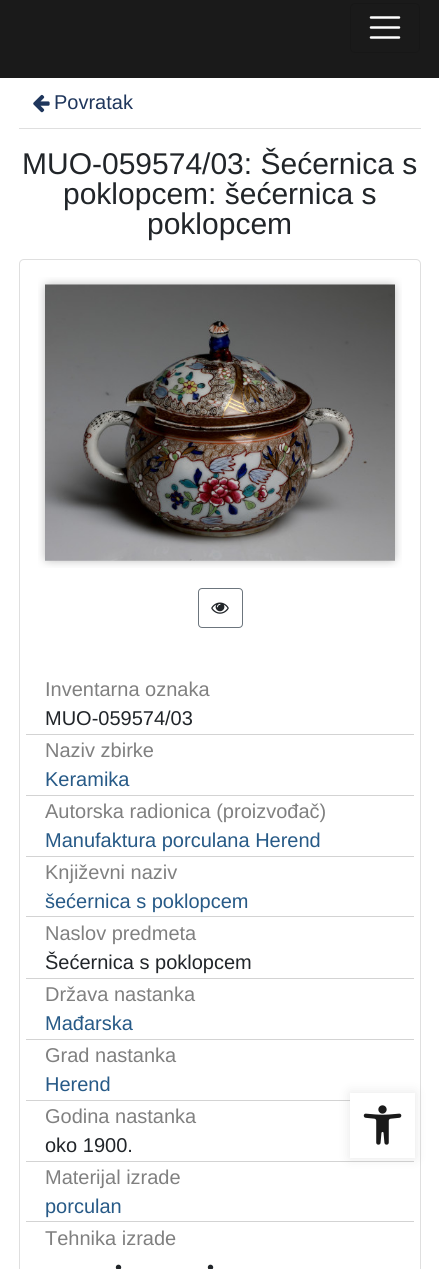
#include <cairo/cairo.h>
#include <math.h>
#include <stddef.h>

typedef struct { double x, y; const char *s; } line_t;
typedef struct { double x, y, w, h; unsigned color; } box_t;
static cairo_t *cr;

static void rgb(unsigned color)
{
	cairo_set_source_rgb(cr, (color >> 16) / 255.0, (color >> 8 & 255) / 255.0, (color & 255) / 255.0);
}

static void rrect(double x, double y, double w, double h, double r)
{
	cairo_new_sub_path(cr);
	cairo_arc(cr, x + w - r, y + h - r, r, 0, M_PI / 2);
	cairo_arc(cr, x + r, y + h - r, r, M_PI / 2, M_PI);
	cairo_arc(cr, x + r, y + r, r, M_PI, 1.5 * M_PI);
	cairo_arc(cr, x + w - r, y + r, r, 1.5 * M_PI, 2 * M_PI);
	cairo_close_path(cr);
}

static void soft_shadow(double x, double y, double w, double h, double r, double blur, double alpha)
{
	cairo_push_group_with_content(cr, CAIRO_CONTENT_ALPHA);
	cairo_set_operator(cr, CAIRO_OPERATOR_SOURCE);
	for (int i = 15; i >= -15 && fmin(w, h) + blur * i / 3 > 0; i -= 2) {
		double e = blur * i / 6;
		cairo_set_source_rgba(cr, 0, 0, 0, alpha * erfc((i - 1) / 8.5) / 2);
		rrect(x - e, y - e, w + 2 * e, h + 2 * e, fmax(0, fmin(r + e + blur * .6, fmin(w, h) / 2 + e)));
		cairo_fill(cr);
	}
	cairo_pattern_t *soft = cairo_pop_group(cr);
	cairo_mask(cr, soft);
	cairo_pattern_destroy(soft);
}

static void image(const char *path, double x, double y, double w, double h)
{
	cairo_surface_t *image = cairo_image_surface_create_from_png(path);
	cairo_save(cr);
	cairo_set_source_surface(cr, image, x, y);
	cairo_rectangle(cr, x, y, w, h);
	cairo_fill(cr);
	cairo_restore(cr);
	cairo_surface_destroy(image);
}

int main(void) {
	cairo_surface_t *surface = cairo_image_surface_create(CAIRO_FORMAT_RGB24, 439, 1269);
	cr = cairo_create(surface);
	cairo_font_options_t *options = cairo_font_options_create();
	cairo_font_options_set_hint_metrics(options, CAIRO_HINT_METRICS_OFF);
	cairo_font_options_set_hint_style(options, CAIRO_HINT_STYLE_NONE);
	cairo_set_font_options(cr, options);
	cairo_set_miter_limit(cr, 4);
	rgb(0xffffff);
	cairo_paint(cr);
	rgb(0x1a1a1a);
	cairo_rectangle(cr, 0, 0, 439, 78);
	cairo_fill(cr);
	rrect(350.5, 3.5, 69, 49, 4.5);
	rgb(0x171717);
	cairo_set_line_width(cr, 1);
	cairo_stroke(cr);
	cairo_new_path(cr);
	cairo_move_to(cr, 371, 17.5);
	cairo_line_to(cr, 399, 17.5);
	cairo_move_to(cr, 371, 27.5);
	cairo_line_to(cr, 399, 27.5);
	cairo_move_to(cr, 371, 37.5);
	cairo_line_to(cr, 399, 37.5);
	rgb(0xffffff);
	cairo_set_line_width(cr, 2.5);
	cairo_set_line_cap(cr, CAIRO_LINE_CAP_ROUND);
	cairo_stroke(cr);
	rgb(0xdfdfdf);
	cairo_rectangle(cr, 19, 128, 402, 1);
	cairo_fill(cr);
	image("img/1.png", 33, 94, 17, 19);
	rrect(19.5, 259.5, 401, 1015, 4.5);
	cairo_set_line_width(cr, 1);
	cairo_set_line_cap(cr, CAIRO_LINE_CAP_BUTT);
	cairo_stroke(cr);
	image("img/2.png", 38, 277, 364, 291);
	rrect(198.5, 588.5, 44, 39, 3.5);
	rgb(0x6c757d);
	cairo_stroke(cr);
	image("img/3.png", 211, 602, 18, 12);
	{
		static const box_t items[] = {
			{26, 734, 388, 1, 0xd3d3d3},
			{26, 795, 388, 1, 0xd3d3d3},
			{26, 856, 388, 1, 0xd3d3d3},
			{26, 916, 388, 1, 0xd3d3d3},
			{26, 978, 388, 1, 0xd3d3d3},
			{26, 1039, 388, 1, 0xd3d3d3},
			{26, 1100, 324, 1, 0xd3d3d3},
			{26, 1161, 388, 1, 0xd3d3d3},
			{26, 1221, 388, 1, 0xd3d3d3},
		};
		for (size_t i = 0; i < sizeof items / sizeof *items; i++) {
			rgb(items[i].color);
			cairo_rectangle(cr, items[i].x, items[i].y, items[i].w, items[i].h);
			cairo_fill(cr);
		}
	}
	rgb(0x000000);
	soft_shadow(350, 1093, 65, 65, 0, 6, 0.1);
	rgb(0xffffff);
	cairo_rectangle(cr, 350, 1093, 65, 65);
	cairo_fill(cr);
	image("img/4.png", 363, 1105, 39, 40);
	cairo_select_font_face(cr, "Liberation Sans", CAIRO_FONT_SLANT_NORMAL, CAIRO_FONT_WEIGHT_NORMAL);
	cairo_set_font_size(cr, 20);
	rgb(0x1f365c);
	cairo_move_to(cr, 54, 109);
	cairo_show_text(cr, "Povratak");
	cairo_set_font_size(cr, 30);
	rgb(0x212529);
	{
		static const line_t items[] = {
			{22, 174, "MUO-059574/03: Šećernica s"},
			{63, 204, "poklopcem: šećernica s"},
			{147, 234, "poklopcem"},
		};
		for (size_t i = 0; i < sizeof items / sizeof *items; i++) {
			cairo_move_to(cr, items[i].x, items[i].y);
			cairo_show_text(cr, items[i].s);
		}
	}
	cairo_set_font_size(cr, 20);
	rgb(0x808080);
	cairo_move_to(cr, 45, 696);
	cairo_show_text(cr, "Inventarna oznaka");
	rgb(0x212529);
	cairo_move_to(cr, 45, 725);
	cairo_show_text(cr, "MUO-059574/03");
	rgb(0x808080);
	cairo_move_to(cr, 45, 757);
	cairo_show_text(cr, "Naziv zbirke");
	rgb(0x275a87);
	cairo_move_to(cr, 45, 786);
	cairo_show_text(cr, "Keramika");
	rgb(0x808080);
	cairo_move_to(cr, 45, 818);
	cairo_show_text(cr, "Autorska radionica (proizvođač)");
	rgb(0x275a87);
	cairo_move_to(cr, 45, 847);
	cairo_show_text(cr, "Manufaktura porculana Herend");
	rgb(0x808080);
	cairo_move_to(cr, 45, 879);
	cairo_show_text(cr, "Književni naziv");
	rgb(0x275a87);
	cairo_move_to(cr, 45, 908);
	cairo_show_text(cr, "šećernica s poklopcem");
	rgb(0x808080);
	cairo_move_to(cr, 45, 940);
	cairo_show_text(cr, "Naslov predmeta");
	rgb(0x212529);
	cairo_move_to(cr, 45, 969);
	cairo_show_text(cr, "Šećernica s poklopcem");
	rgb(0x808080);
	cairo_move_to(cr, 45, 1001);
	cairo_show_text(cr, "Država nastanka");
	rgb(0x275a87);
	cairo_move_to(cr, 45, 1030);
	cairo_show_text(cr, "Mađarska");
	rgb(0x808080);
	cairo_move_to(cr, 45, 1062);
	cairo_show_text(cr, "Grad nastanka");
	rgb(0x275a87);
	cairo_move_to(cr, 45, 1091);
	cairo_show_text(cr, "Herend");
	rgb(0x808080);
	cairo_move_to(cr, 45, 1123);
	cairo_show_text(cr, "Godina nastanka");
	rgb(0x212529);
	cairo_move_to(cr, 45, 1152);
	cairo_show_text(cr, "oko 1900.");
	rgb(0x808080);
	cairo_move_to(cr, 45, 1184);
	cairo_show_text(cr, "Materijal izrade");
	rgb(0x275a87);
	cairo_move_to(cr, 45, 1213);
	cairo_show_text(cr, "porculan");
	rgb(0x808080);
	cairo_move_to(cr, 45, 1245);
	cairo_show_text(cr, "Tehnika izrade");
	rgb(0x212529);
	cairo_move_to(cr, 115, 1274);
	cairo_show_text(cr, "•");
	cairo_move_to(cr, 207, 1274);
	cairo_show_text(cr, "•");
	cairo_surface_write_to_png(surface, "page.png");
	cairo_font_options_destroy(options);
	cairo_destroy(cr);
	cairo_surface_destroy(surface);
	return 0;
}
